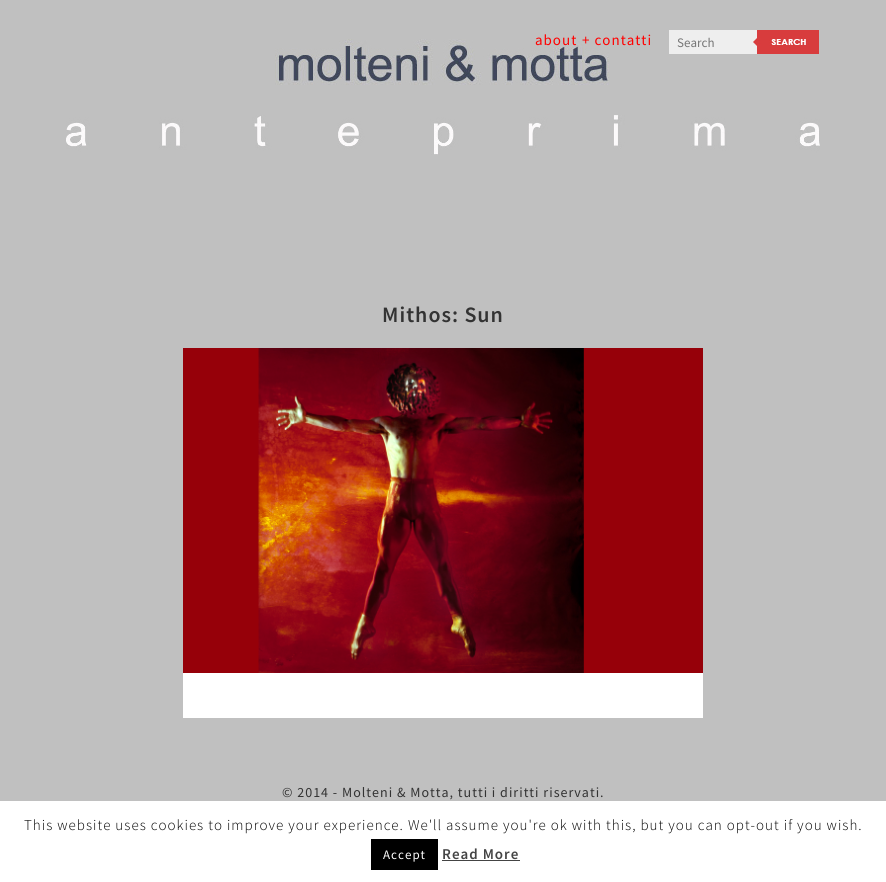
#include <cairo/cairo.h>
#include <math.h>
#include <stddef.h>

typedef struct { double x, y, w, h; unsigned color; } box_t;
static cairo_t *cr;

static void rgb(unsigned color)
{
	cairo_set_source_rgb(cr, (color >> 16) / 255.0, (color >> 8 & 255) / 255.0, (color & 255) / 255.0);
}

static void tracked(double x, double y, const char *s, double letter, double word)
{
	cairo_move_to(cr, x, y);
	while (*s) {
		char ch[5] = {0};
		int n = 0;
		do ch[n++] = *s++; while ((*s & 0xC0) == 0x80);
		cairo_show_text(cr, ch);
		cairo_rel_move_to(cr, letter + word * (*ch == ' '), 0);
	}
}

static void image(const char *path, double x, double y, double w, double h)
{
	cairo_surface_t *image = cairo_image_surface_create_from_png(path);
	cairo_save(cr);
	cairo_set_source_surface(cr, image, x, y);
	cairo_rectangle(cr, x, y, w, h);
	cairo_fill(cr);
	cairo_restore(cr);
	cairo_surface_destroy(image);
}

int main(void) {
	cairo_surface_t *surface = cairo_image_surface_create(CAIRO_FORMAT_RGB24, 886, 882);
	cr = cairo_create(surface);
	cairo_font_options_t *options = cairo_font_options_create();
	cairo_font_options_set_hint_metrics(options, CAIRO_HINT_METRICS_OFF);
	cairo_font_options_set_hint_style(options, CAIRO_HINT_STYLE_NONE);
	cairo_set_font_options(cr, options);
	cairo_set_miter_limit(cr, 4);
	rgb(0xc0c0c0);
	cairo_paint(cr);
	image("img/1.png", 275, 39, 334, 46);
	rgb(0xeeeeee);
	cairo_rectangle(cr, 669, 30, 84, 24);
	cairo_fill(cr);
	image("img/2.png", 753, 30, 66, 24);
	image("img/3.png", 66, 115, 754, 40);
	rgb(0xffffff);
	cairo_rectangle(cr, 183, 673, 520, 45);
	cairo_fill(cr);
	image("img/4.png", 183, 348, 477, 325);
	{
		static const box_t items[] = {
			{660, 348, 43, 325, 0x960009},
			{0, 801, 886, 81, 0xffffff},
			{371, 839, 67, 31, 0x000000},
			{442, 860, 78, 1, 0x444444},
		};
		for (size_t i = 0; i < sizeof items / sizeof *items; i++) {
			rgb(items[i].color);
			cairo_rectangle(cr, items[i].x, items[i].y, items[i].w, items[i].h);
			cairo_fill(cr);
		}
	}
	cairo_select_font_face(cr, "Source Sans Pro", CAIRO_FONT_SLANT_NORMAL, CAIRO_FONT_WEIGHT_NORMAL);
	cairo_set_font_size(cr, 15);
	rgb(0xff0000);
	tracked(535, 45, "about", 1, 0);
	tracked(582, 45, "+ contatti", 1, 0);
	cairo_set_font_size(cr, 13);
	rgb(0x757575);
	cairo_move_to(cr, 677, 47);
	cairo_show_text(cr, "Search");
	cairo_select_font_face(cr, "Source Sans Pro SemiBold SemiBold", CAIRO_FONT_SLANT_NORMAL, CAIRO_FONT_WEIGHT_NORMAL);
	cairo_set_font_size(cr, 22);
	rgb(0x333333);
	tracked(382, 322, "Mithos: Sun", 1, 0);
	cairo_select_font_face(cr, "Source Sans Pro", CAIRO_FONT_SLANT_NORMAL, CAIRO_FONT_WEIGHT_NORMAL);
	cairo_set_font_size(cr, 14);
	tracked(282, 797, "© 2014 - Molteni & Motta, tutti i diritti riservati.", 1, 0);
	cairo_select_font_face(cr, "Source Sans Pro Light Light", CAIRO_FONT_SLANT_NORMAL, CAIRO_FONT_WEIGHT_NORMAL);
	cairo_set_font_size(cr, 15);
	rgb(0x000000);
	tracked(24, 830, "This website uses cookies to improve your experience. We'll assume you're ok with this, but you can opt-out if you wish.", 1, 0);
	cairo_select_font_face(cr, "Source Sans Pro", CAIRO_FONT_SLANT_NORMAL, CAIRO_FONT_WEIGHT_NORMAL);
	cairo_set_font_size(cr, 13);
	rgb(0xffffff);
	tracked(383, 859, "Accept", 1, 0);
	cairo_select_font_face(cr, "Source Sans Pro SemiBold SemiBold", CAIRO_FONT_SLANT_NORMAL, CAIRO_FONT_WEIGHT_NORMAL);
	cairo_set_font_size(cr, 15);
	rgb(0x444444);
	tracked(442, 859, "Read More", 1, 0);
	cairo_surface_write_to_png(surface, "page.png");
	cairo_font_options_destroy(options);
	cairo_destroy(cr);
	cairo_surface_destroy(surface);
	return 0;
}
